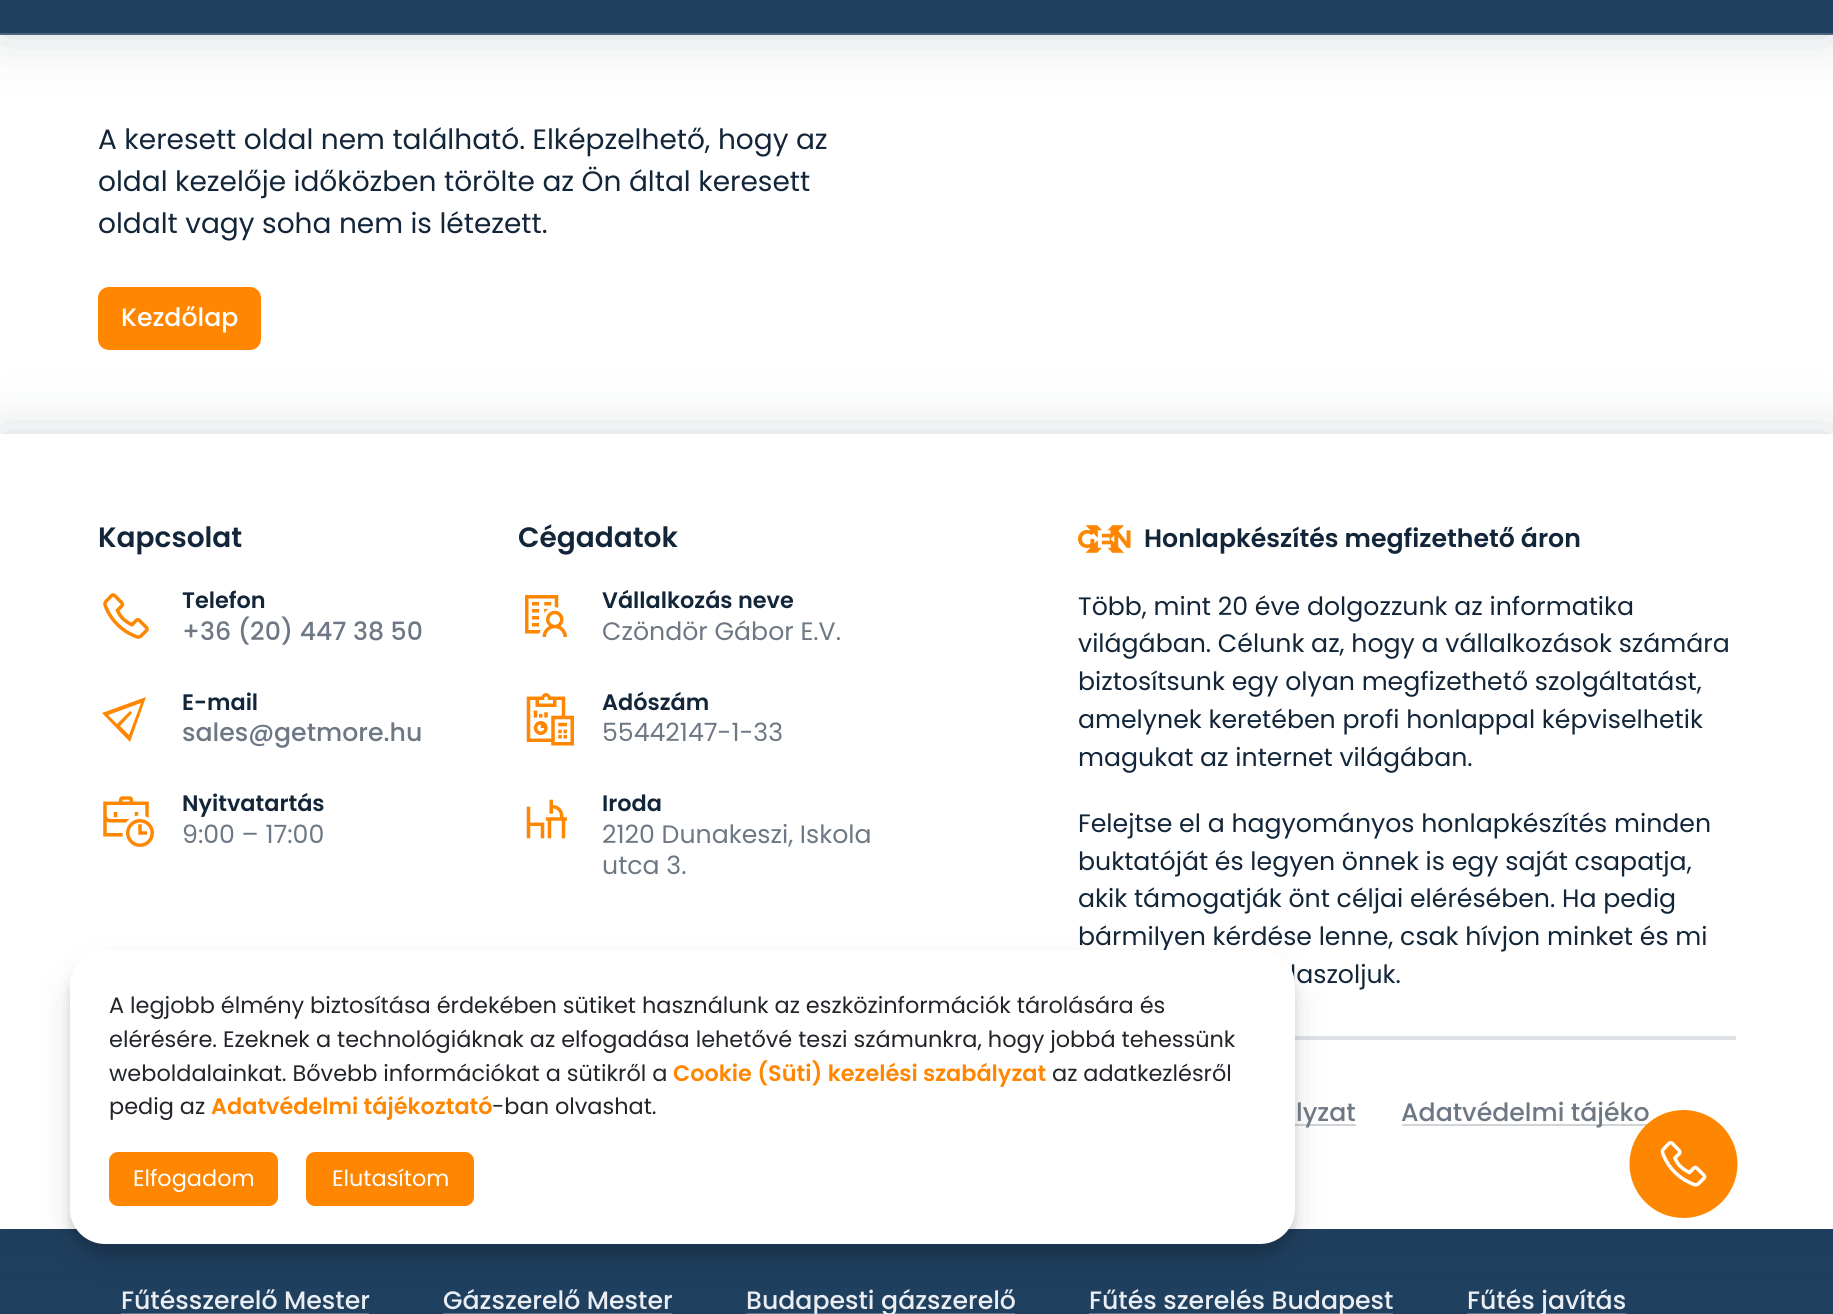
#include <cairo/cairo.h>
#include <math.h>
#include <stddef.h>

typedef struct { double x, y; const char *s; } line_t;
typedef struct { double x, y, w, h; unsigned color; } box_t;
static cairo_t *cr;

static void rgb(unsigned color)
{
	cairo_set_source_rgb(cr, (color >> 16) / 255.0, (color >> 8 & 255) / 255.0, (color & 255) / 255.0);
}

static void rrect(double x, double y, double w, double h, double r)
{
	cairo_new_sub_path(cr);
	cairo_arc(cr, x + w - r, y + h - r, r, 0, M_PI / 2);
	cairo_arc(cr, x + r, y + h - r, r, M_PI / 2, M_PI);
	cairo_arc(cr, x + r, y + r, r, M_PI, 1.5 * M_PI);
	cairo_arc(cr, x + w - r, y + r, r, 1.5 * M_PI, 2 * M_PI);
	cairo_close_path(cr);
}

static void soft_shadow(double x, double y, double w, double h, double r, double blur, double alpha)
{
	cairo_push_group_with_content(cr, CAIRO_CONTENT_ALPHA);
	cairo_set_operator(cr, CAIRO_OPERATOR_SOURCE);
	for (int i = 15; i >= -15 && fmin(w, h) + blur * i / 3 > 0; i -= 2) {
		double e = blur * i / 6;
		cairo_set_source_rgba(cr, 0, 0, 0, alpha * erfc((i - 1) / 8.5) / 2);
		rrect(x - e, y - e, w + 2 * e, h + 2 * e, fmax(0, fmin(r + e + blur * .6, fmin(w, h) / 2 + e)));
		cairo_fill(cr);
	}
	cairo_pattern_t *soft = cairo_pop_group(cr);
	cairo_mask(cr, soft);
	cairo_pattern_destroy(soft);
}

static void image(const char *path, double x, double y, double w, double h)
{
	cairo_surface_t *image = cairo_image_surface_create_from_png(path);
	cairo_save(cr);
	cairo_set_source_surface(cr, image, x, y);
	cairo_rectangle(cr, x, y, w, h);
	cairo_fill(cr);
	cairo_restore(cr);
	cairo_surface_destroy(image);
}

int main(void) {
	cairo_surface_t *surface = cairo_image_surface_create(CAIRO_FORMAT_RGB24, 1833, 1314);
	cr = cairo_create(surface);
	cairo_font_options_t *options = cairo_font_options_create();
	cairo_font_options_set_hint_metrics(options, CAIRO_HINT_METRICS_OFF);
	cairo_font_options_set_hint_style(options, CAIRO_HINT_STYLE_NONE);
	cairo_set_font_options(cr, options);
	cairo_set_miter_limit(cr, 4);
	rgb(0xffffff);
	cairo_paint(cr);
	rgb(0x132639);
	soft_shadow(0, -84, 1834, 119, 0, 28, 0.18);
	rgb(0x204060);
	cairo_rectangle(cr, 0, 0, 1833, 33);
	cairo_fill(cr);
	rgb(0x4d6680);
	cairo_rectangle(cr, 0, 33, 1833, 2);
	cairo_fill(cr);
	rgb(0xff8600);
	rrect(98, 287, 163, 63, 11);
	cairo_fill(cr);
	rgb(0x204060);
	cairo_rectangle(cr, 0, 1229, 1833, 85);
	cairo_fill(cr);
	rgb(0x132639);
	soft_shadow(0, 434, 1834, 795, 0, 28, 0.18);
	rgb(0xffffff);
	cairo_rectangle(cr, 0, 434, 1833, 795);
	cairo_fill(cr);
	image("img/1.png", 103, 593, 46, 46);
	rgb(0xff8600);
	cairo_new_path(cr);
	cairo_move_to(cr, 146, 697);
	cairo_line_to(cr, 102, 713);
	cairo_line_to(cr, 130, 742);
	cairo_close_path(cr);
	cairo_move_to(cr, 141, 703);
	cairo_line_to(cr, 129, 735);
	cairo_line_to(cr, 120, 726);
	cairo_line_to(cr, 132, 713);
	cairo_line_to(cr, 130, 711);
	cairo_line_to(cr, 117, 724);
	cairo_line_to(cr, 108, 715);
	cairo_close_path(cr);
	cairo_fill(cr);
	image("img/2.png", 103, 796, 51, 51);
	image("img/3.png", 525, 595, 42, 42);
	image("img/4.png", 526, 693, 48, 53);
	image("img/5.png", 526, 799, 41, 40);
	image("img/6.png", 1078, 525, 53, 28);
	{
		static const box_t items[] = {
			{1295, 1036, 441, 4, 0xdee2e6},
			{1295, 1124, 61, 2, 0xd0d4d7},
			{1402, 1124, 246, 2, 0xd0d4d7},
		};
		for (size_t i = 0; i < sizeof items / sizeof *items; i++) {
			rgb(items[i].color);
			cairo_rectangle(cr, items[i].x, items[i].y, items[i].w, items[i].h);
			cairo_fill(cr);
		}
	}
	rgb(0x000000);
	soft_shadow(70, 961, 1225, 294, 35, 5, 0.12);
	{
		static const box_t items[] = {
			{121, 1313, 248, 1, 0x5d748c},
			{443, 1313, 229, 1, 0x5d748c},
			{746, 1313, 269, 1, 0x5d748c},
			{1089, 1313, 304, 1, 0x5d748c},
		};
		for (size_t i = 0; i < sizeof items / sizeof *items; i++) {
			rgb(items[i].color);
			cairo_rectangle(cr, items[i].x, items[i].y, items[i].w, items[i].h);
			cairo_fill(cr);
		}
	}
	rgb(0x000000);
	soft_shadow(70, 968, 1225, 294, 35, 17.5, 0.11);
	rgb(0x5d748c);
	cairo_rectangle(cr, 1467, 1313, 159, 1);
	cairo_fill(cr);
	cairo_select_font_face(cr, "Poppins", CAIRO_FONT_SLANT_NORMAL, CAIRO_FONT_WEIGHT_NORMAL);
	cairo_set_font_size(cr, 28);
	rgb(0x132639);
	{
		static const line_t items[] = {
			{98, 149, "A keresett oldal nem található. Elképzelhető, hogy az"},
			{98, 191, "oldal kezelője időközben törölte az Ön által keresett"},
			{98, 233, "oldalt vagy soha nem is létezett."},
		};
		for (size_t i = 0; i < sizeof items / sizeof *items; i++) {
			cairo_move_to(cr, items[i].x, items[i].y);
			cairo_show_text(cr, items[i].s);
		}
	}
	cairo_select_font_face(cr, "Poppins Medium", CAIRO_FONT_SLANT_NORMAL, CAIRO_FONT_WEIGHT_NORMAL);
	cairo_set_font_size(cr, 25.2);
	rgb(0xffffff);
	cairo_move_to(cr, 121, 326);
	cairo_show_text(cr, "Kezdőlap");
	cairo_select_font_face(cr, "Poppins SemiBold", CAIRO_FONT_SLANT_NORMAL, CAIRO_FONT_WEIGHT_NORMAL);
	cairo_set_font_size(cr, 28);
	rgb(0x132639);
	cairo_move_to(cr, 98, 547);
	cairo_show_text(cr, "Kapcsolat");
	cairo_set_font_size(cr, 22.4);
	cairo_move_to(cr, 182, 608);
	cairo_show_text(cr, "Telefon");
	cairo_select_font_face(cr, "Poppins Medium", CAIRO_FONT_SLANT_NORMAL, CAIRO_FONT_WEIGHT_NORMAL);
	cairo_set_font_size(cr, 25.2);
	rgb(0x6d7884);
	cairo_move_to(cr, 182, 640);
	cairo_show_text(cr, "+36 (20) 447 38 50");
	cairo_select_font_face(cr, "Poppins SemiBold", CAIRO_FONT_SLANT_NORMAL, CAIRO_FONT_WEIGHT_NORMAL);
	cairo_set_font_size(cr, 22.4);
	rgb(0x132639);
	cairo_move_to(cr, 182, 710);
	cairo_show_text(cr, "E-mail");
	cairo_select_font_face(cr, "Poppins Medium", CAIRO_FONT_SLANT_NORMAL, CAIRO_FONT_WEIGHT_NORMAL);
	cairo_set_font_size(cr, 25.2);
	rgb(0x6d7884);
	cairo_move_to(cr, 182, 741);
	cairo_show_text(cr, "sales@getmore.hu");
	cairo_select_font_face(cr, "Poppins SemiBold", CAIRO_FONT_SLANT_NORMAL, CAIRO_FONT_WEIGHT_NORMAL);
	cairo_set_font_size(cr, 22.4);
	rgb(0x132639);
	cairo_move_to(cr, 182, 811);
	cairo_show_text(cr, "Nyitvatartás");
	cairo_select_font_face(cr, "Poppins", CAIRO_FONT_SLANT_NORMAL, CAIRO_FONT_WEIGHT_NORMAL);
	cairo_set_font_size(cr, 25.2);
	rgb(0x6d7884);
	cairo_move_to(cr, 182, 843);
	cairo_show_text(cr, "9:00 – 17:00");
	cairo_select_font_face(cr, "Poppins SemiBold", CAIRO_FONT_SLANT_NORMAL, CAIRO_FONT_WEIGHT_NORMAL);
	cairo_set_font_size(cr, 28);
	rgb(0x132639);
	cairo_move_to(cr, 518, 547);
	cairo_show_text(cr, "Cégadatok");
	cairo_set_font_size(cr, 22.4);
	cairo_move_to(cr, 602, 608);
	cairo_show_text(cr, "Vállalkozás neve");
	cairo_select_font_face(cr, "Poppins", CAIRO_FONT_SLANT_NORMAL, CAIRO_FONT_WEIGHT_NORMAL);
	cairo_set_font_size(cr, 25.2);
	rgb(0x6d7884);
	cairo_move_to(cr, 602, 640);
	cairo_show_text(cr, "Czöndör Gábor E.V.");
	cairo_select_font_face(cr, "Poppins SemiBold", CAIRO_FONT_SLANT_NORMAL, CAIRO_FONT_WEIGHT_NORMAL);
	cairo_set_font_size(cr, 22.4);
	rgb(0x132639);
	cairo_move_to(cr, 602, 710);
	cairo_show_text(cr, "Adószám");
	cairo_select_font_face(cr, "Poppins", CAIRO_FONT_SLANT_NORMAL, CAIRO_FONT_WEIGHT_NORMAL);
	cairo_set_font_size(cr, 25.2);
	rgb(0x6d7884);
	cairo_move_to(cr, 602, 741);
	cairo_show_text(cr, "55442147-1-33");
	cairo_select_font_face(cr, "Poppins SemiBold", CAIRO_FONT_SLANT_NORMAL, CAIRO_FONT_WEIGHT_NORMAL);
	cairo_set_font_size(cr, 22.4);
	rgb(0x132639);
	cairo_move_to(cr, 602, 811);
	cairo_show_text(cr, "Iroda");
	cairo_select_font_face(cr, "Poppins", CAIRO_FONT_SLANT_NORMAL, CAIRO_FONT_WEIGHT_NORMAL);
	cairo_set_font_size(cr, 25.2);
	rgb(0x6d7884);
	cairo_move_to(cr, 602, 843);
	cairo_show_text(cr, "2120 Dunakeszi, Iskola");
	cairo_move_to(cr, 602, 874);
	cairo_show_text(cr, "utca 3.");
	cairo_select_font_face(cr, "Poppins SemiBold", CAIRO_FONT_SLANT_NORMAL, CAIRO_FONT_WEIGHT_NORMAL);
	rgb(0x132639);
	cairo_move_to(cr, 1144, 547);
	cairo_show_text(cr, "Honlapkészítés megfizethető áron");
	cairo_select_font_face(cr, "Poppins", CAIRO_FONT_SLANT_NORMAL, CAIRO_FONT_WEIGHT_NORMAL);
	{
		static const line_t items[] = {
			{1078, 615, "Több, mint 20 éve dolgozzunk az informatika"},
			{1078, 652, "világában. Célunk az, hogy a vállalkozások számára"},
			{1078, 690, "biztosítsunk egy olyan megfizethető szolgáltatást,"},
			{1078, 728, "amelynek keretében profi honlappal képviselhetik"},
			{1078, 766, "magukat az internet világában."},
			{1078, 832, "Felejtse el a hagyományos honlapkészítés minden"},
			{1078, 870, "buktatóját és legyen önnek is egy saját csapatja,"},
			{1078, 907, "akik támogatják önt céljai elérésében. Ha pedig"},
			{1078, 945, "bármilyen kérdése lenne, csak hívjon minket és mi"},
			{1290, 983, "laszoljuk."},
		};
		for (size_t i = 0; i < sizeof items / sizeof *items; i++) {
			cairo_move_to(cr, items[i].x, items[i].y);
			cairo_show_text(cr, items[i].s);
		}
	}
	cairo_select_font_face(cr, "Poppins Medium", CAIRO_FONT_SLANT_NORMAL, CAIRO_FONT_WEIGHT_NORMAL);
	rgb(0x6d7884);
	cairo_move_to(cr, 1296, 1121);
	cairo_show_text(cr, "lyzat");
	cairo_move_to(cr, 1401, 1121);
	cairo_show_text(cr, "Adatvédelmi tájéko");
	rgb(0xffffff);
	rrect(70, 950, 1225, 294, 35);
	cairo_fill(cr);
	cairo_select_font_face(cr, "Poppins", CAIRO_FONT_SLANT_NORMAL, CAIRO_FONT_WEIGHT_NORMAL);
	cairo_set_font_size(cr, 22.4);
	rgb(0x212529);
	{
		static const line_t items[] = {
			{109, 1013, "A legjobb élmény biztosítása érdekében sütiket használunk az eszközinformációk tárolására és"},
			{109, 1047, "elérésére. Ezeknek a technológiáknak az elfogadása lehetővé teszi számunkra, hogy jobbá tehessünk"},
			{109, 1081, "weboldalainkat. Bővebb információkat a sütikről a"},
		};
		for (size_t i = 0; i < sizeof items / sizeof *items; i++) {
			cairo_move_to(cr, items[i].x, items[i].y);
			cairo_show_text(cr, items[i].s);
		}
	}
	cairo_select_font_face(cr, "Poppins SemiBold", CAIRO_FONT_SLANT_NORMAL, CAIRO_FONT_WEIGHT_NORMAL);
	rgb(0xff8600);
	cairo_move_to(cr, 673, 1081);
	cairo_show_text(cr, "Cookie (Süti) kezelési szabályzat");
	cairo_select_font_face(cr, "Poppins", CAIRO_FONT_SLANT_NORMAL, CAIRO_FONT_WEIGHT_NORMAL);
	rgb(0x212529);
	cairo_move_to(cr, 1052, 1081);
	cairo_show_text(cr, "az adatkezlésről");
	cairo_move_to(cr, 109, 1114);
	cairo_show_text(cr, "pedig az");
	cairo_select_font_face(cr, "Poppins SemiBold", CAIRO_FONT_SLANT_NORMAL, CAIRO_FONT_WEIGHT_NORMAL);
	rgb(0xff8600);
	cairo_move_to(cr, 211, 1114);
	cairo_show_text(cr, "Adatvédelmi tájékoztató");
	cairo_select_font_face(cr, "Poppins", CAIRO_FONT_SLANT_NORMAL, CAIRO_FONT_WEIGHT_NORMAL);
	rgb(0x212529);
	cairo_move_to(cr, 492, 1114);
	cairo_show_text(cr, "-ban olvashat.");
	rgb(0xff8600);
	rrect(109, 1152, 169, 54, 9);
	cairo_fill(cr);
	rgb(0xffffff);
	cairo_move_to(cr, 133, 1186);
	cairo_show_text(cr, "Elfogadom");
	rgb(0xff8600);
	rrect(306, 1152, 168, 54, 9);
	cairo_fill(cr);
	rgb(0xffffff);
	cairo_move_to(cr, 332, 1186);
	cairo_show_text(cr, "Elutasítom");
	rgb(0xff8600);
	cairo_new_path(cr);
	cairo_arc(cr, 1683.5, 1164, 54, 0, 2 * M_PI);
	cairo_fill(cr);
	image("img/7.png", 1660, 1141, 47, 46);
	cairo_select_font_face(cr, "Poppins Medium", CAIRO_FONT_SLANT_NORMAL, CAIRO_FONT_WEIGHT_NORMAL);
	cairo_set_font_size(cr, 25.2);
	rgb(0xeaeef3);
	{
		static const line_t items[] = {
			{121, 1309, "Fűtésszerelő Mester"},
			{443, 1309, "Gázszerelő Mester"},
			{746, 1309, "Budapesti gázszerelő"},
			{1089, 1309, "Fűtés szerelés Budapest"},
			{1467, 1309, "Fűtés javítás"},
		};
		for (size_t i = 0; i < sizeof items / sizeof *items; i++) {
			cairo_move_to(cr, items[i].x, items[i].y);
			cairo_show_text(cr, items[i].s);
		}
	}
	cairo_surface_write_to_png(surface, "page.png");
	cairo_font_options_destroy(options);
	cairo_destroy(cr);
	cairo_surface_destroy(surface);
	return 0;
}
